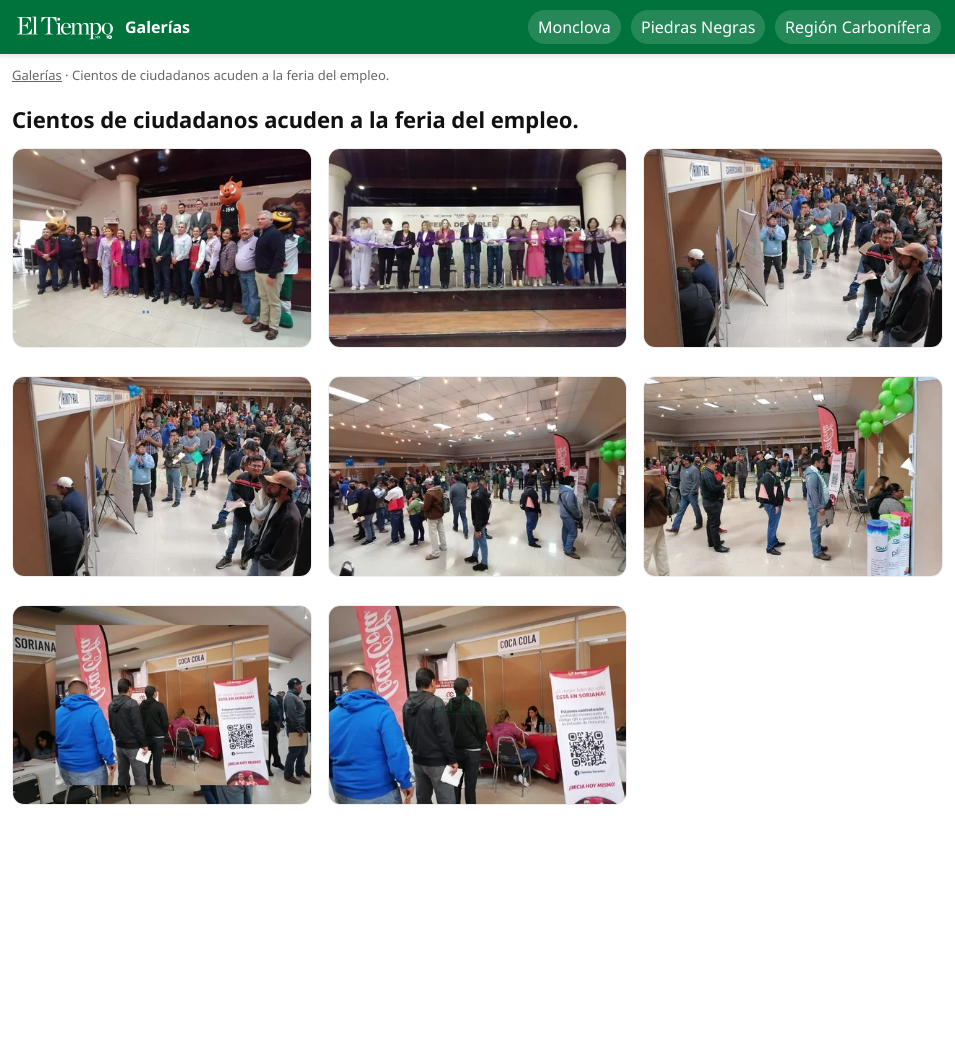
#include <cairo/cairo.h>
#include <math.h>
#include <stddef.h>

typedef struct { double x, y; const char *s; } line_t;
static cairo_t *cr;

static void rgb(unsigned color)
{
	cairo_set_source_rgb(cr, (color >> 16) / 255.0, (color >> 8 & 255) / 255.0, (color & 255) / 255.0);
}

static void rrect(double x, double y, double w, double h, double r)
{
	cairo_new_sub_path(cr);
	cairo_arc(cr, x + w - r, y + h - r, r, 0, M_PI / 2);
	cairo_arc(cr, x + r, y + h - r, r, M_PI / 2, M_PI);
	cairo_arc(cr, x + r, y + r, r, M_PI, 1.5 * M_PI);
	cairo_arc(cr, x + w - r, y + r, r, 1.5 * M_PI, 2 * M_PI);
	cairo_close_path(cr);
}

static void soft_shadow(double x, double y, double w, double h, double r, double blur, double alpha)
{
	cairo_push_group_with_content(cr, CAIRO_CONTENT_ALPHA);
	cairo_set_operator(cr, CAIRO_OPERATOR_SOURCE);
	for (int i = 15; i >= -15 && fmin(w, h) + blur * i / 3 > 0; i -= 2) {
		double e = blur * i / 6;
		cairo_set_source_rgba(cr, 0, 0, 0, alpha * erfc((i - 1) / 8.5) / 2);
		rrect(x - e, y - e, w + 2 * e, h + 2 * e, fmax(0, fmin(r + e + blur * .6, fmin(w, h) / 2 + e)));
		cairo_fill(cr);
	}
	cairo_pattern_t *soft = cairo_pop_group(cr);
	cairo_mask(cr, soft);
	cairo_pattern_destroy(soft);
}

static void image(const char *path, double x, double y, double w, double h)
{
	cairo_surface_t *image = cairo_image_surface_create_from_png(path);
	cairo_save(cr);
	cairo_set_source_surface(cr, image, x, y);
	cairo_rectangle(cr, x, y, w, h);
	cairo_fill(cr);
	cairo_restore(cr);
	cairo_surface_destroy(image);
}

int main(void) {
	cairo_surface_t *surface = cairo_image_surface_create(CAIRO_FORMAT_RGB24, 955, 1051);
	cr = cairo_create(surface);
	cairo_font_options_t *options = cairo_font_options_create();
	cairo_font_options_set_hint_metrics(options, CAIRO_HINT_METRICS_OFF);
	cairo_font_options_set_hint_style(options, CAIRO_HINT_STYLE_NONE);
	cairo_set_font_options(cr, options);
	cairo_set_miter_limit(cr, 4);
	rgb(0xffffff);
	cairo_paint(cr);
	rgb(0x000000);
	soft_shadow(0, 2, 955, 54, 0, 3, 0.12);
	rgb(0x00733c);
	cairo_rectangle(cr, 0, 0, 955, 54);
	cairo_fill(cr);
	image("img/1.png", 17, 16, 96, 24);
	rgb(0x268859);
	rrect(528, 10, 93, 34, 17);
	cairo_fill(cr);
	rrect(631, 10, 134, 34, 17);
	cairo_fill(cr);
	rrect(775, 10, 166, 34, 17);
	cairo_fill(cr);
	rgb(0x666666);
	cairo_rectangle(cr, 12, 81, 50, 1);
	cairo_fill(cr);
	rrect(12.5, 148.5, 299, 199, 11.5);
	rgb(0xeeeeee);
	cairo_set_line_width(cr, 1);
	cairo_stroke(cr);
	image("img/2.png", 13, 149, 298, 198);
	rrect(328.5, 148.5, 298, 199, 11.5);
	cairo_stroke(cr);
	image("img/3.png", 329, 149, 297, 198);
	rrect(643.5, 148.5, 299, 199, 11.5);
	cairo_stroke(cr);
	image("img/4.png", 644, 149, 298, 198);
	rrect(12.5, 376.5, 299, 200, 11.5);
	cairo_stroke(cr);
	image("img/5.png", 13, 377, 298, 199);
	rrect(328.5, 376.5, 298, 200, 11.5);
	cairo_stroke(cr);
	image("img/6.png", 329, 377, 297, 199);
	rrect(643.5, 376.5, 299, 200, 11.5);
	cairo_stroke(cr);
	image("img/7.png", 644, 377, 298, 199);
	rrect(12.5, 605.5, 299, 199, 11.5);
	cairo_stroke(cr);
	image("img/8.png", 13, 606, 298, 198);
	rrect(328.5, 605.5, 298, 199, 11.5);
	cairo_stroke(cr);
	image("img/9.png", 329, 606, 297, 198);
	cairo_select_font_face(cr, "Noto Sans", CAIRO_FONT_SLANT_NORMAL, CAIRO_FONT_WEIGHT_BOLD);
	cairo_set_font_size(cr, 16);
	rgb(0xffffff);
	cairo_move_to(cr, 125, 33);
	cairo_show_text(cr, "Galerías");
	cairo_select_font_face(cr, "Noto Sans", CAIRO_FONT_SLANT_NORMAL, CAIRO_FONT_WEIGHT_NORMAL);
	{
		static const line_t items[] = {
			{538, 33, "Monclova"},
			{641, 33, "Piedras Negras"},
			{785, 33, "Región Carbonífera"},
		};
		for (size_t i = 0; i < sizeof items / sizeof *items; i++) {
			cairo_move_to(cr, items[i].x, items[i].y);
			cairo_show_text(cr, items[i].s);
		}
	}
	cairo_set_font_size(cr, 13);
	rgb(0x666666);
	cairo_move_to(cr, 12, 80);
	cairo_show_text(cr, "Galerías · Cientos de ciudadanos acuden a la feria del empleo.");
	cairo_select_font_face(cr, "Noto Sans", CAIRO_FONT_SLANT_NORMAL, CAIRO_FONT_WEIGHT_BOLD);
	cairo_set_font_size(cr, 22);
	rgb(0x111111);
	cairo_move_to(cr, 12, 128);
	cairo_show_text(cr, "Cientos de ciudadanos acuden a la feria del empleo.");
	cairo_surface_write_to_png(surface, "page.png");
	cairo_font_options_destroy(options);
	cairo_destroy(cr);
	cairo_surface_destroy(surface);
	return 0;
}
